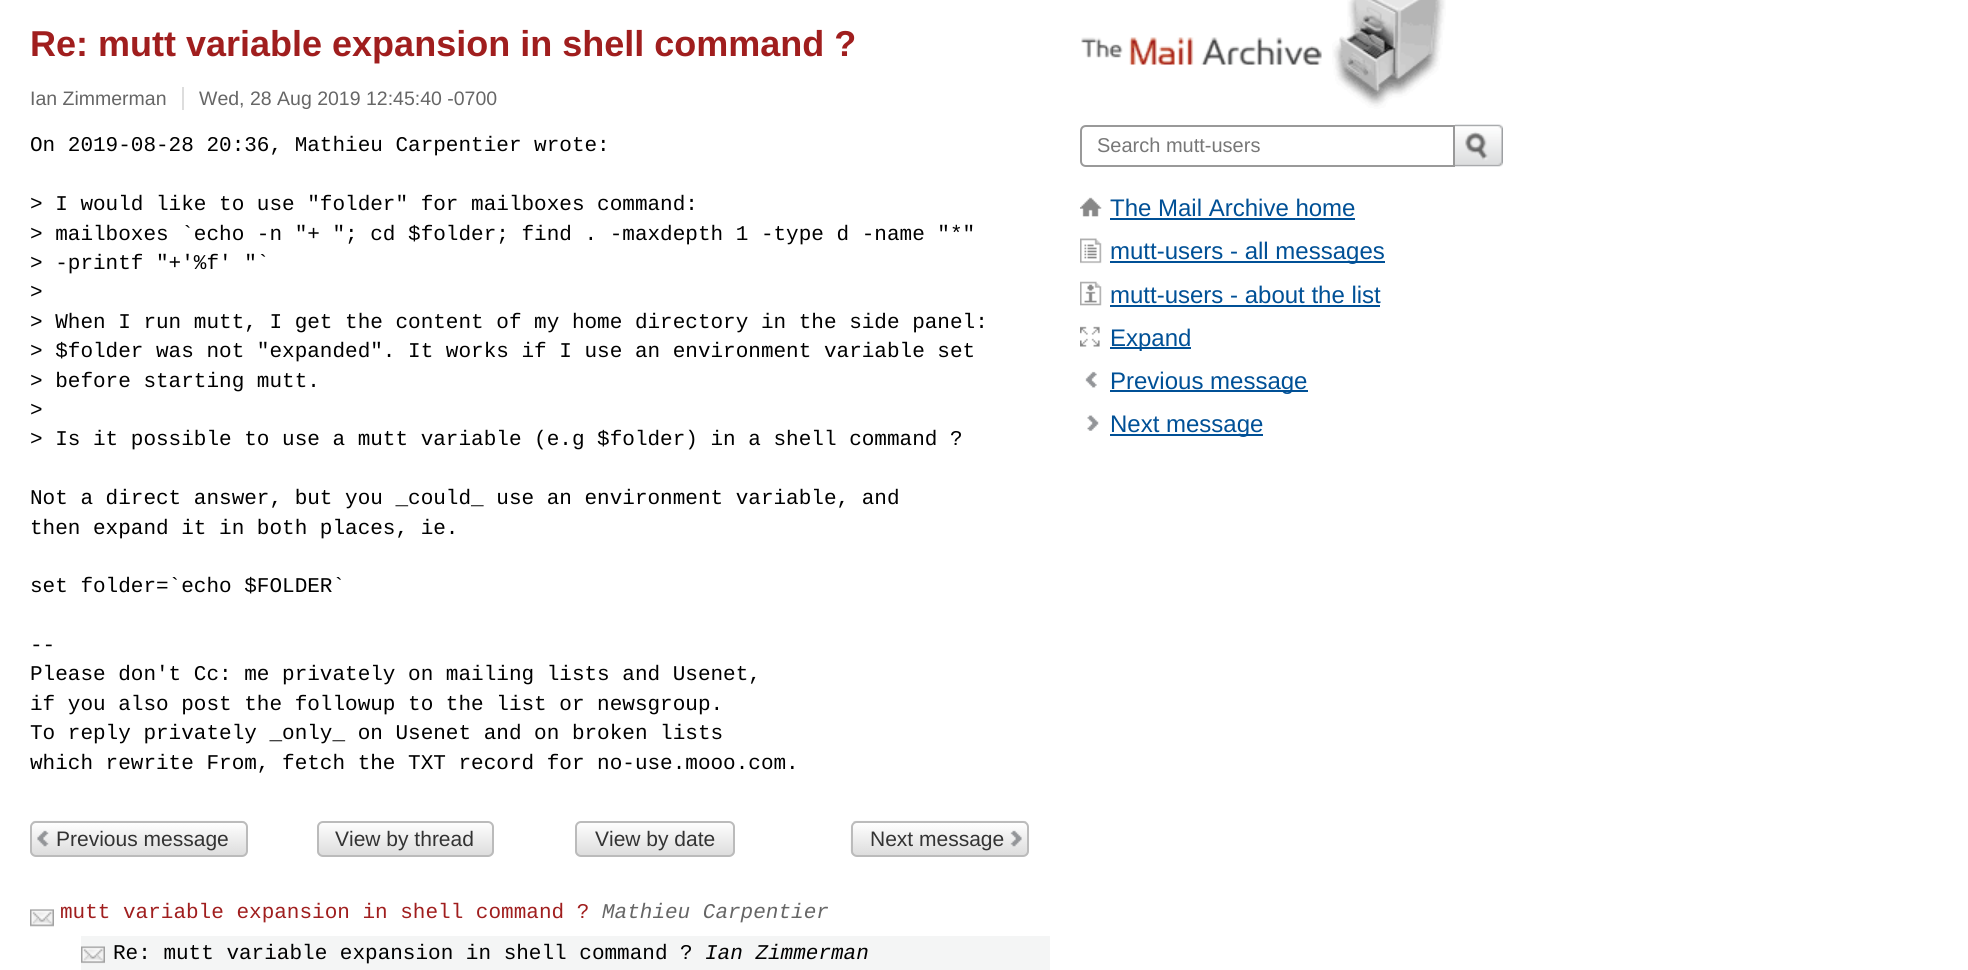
#include <cairo/cairo.h>
#include <math.h>
#include <stddef.h>

typedef struct { double x, y; const char *s; } line_t;
static cairo_t *cr;

static void rgb(unsigned color)
{
	cairo_set_source_rgb(cr, (color >> 16) / 255.0, (color >> 8 & 255) / 255.0, (color & 255) / 255.0);
}

static void rrect(double x, double y, double w, double h, double r)
{
	cairo_new_sub_path(cr);
	cairo_arc(cr, x + w - r, y + h - r, r, 0, M_PI / 2);
	cairo_arc(cr, x + r, y + h - r, r, M_PI / 2, M_PI);
	cairo_arc(cr, x + r, y + r, r, M_PI, 1.5 * M_PI);
	cairo_arc(cr, x + w - r, y + r, r, 1.5 * M_PI, 2 * M_PI);
	cairo_close_path(cr);
}

static void image(const char *path, double x, double y, double w, double h)
{
	cairo_surface_t *image = cairo_image_surface_create_from_png(path);
	cairo_save(cr);
	cairo_set_source_surface(cr, image, x, y);
	cairo_rectangle(cr, x, y, w, h);
	cairo_fill(cr);
	cairo_restore(cr);
	cairo_surface_destroy(image);
}

int main(void) {
	cairo_surface_t *surface = cairo_image_surface_create(CAIRO_FORMAT_RGB24, 1968, 970);
	cr = cairo_create(surface);
	cairo_font_options_t *options = cairo_font_options_create();
	cairo_font_options_set_hint_metrics(options, CAIRO_HINT_METRICS_OFF);
	cairo_font_options_set_hint_style(options, CAIRO_HINT_STYLE_NONE);
	cairo_set_font_options(cr, options);
	cairo_set_miter_limit(cr, 4);
	cairo_pattern_t *gradient;
	rgb(0xffffff);
	cairo_paint(cr);
	rgb(0xdddddd);
	cairo_rectangle(cr, 182, 87, 2, 23);
	cairo_fill(cr);
	image("img/1.png", 30, 820, 217, 36);
	rrect(31, 822, 216, 34, 5);
	rgb(0xbbbbbb);
	cairo_stroke(cr);
	cairo_save(cr);
	rrect(317, 821, 177, 36, 6);
	cairo_clip(cr);
	gradient = cairo_pattern_create_linear(405, 822, 405, 855);
	cairo_pattern_add_color_stop_rgba(gradient, 0, 1, 1, 1, 1);
	cairo_pattern_add_color_stop_rgba(gradient, 1, 0.867, 0.867, 0.867, 1);
	cairo_set_source(cr, gradient);
	cairo_pattern_destroy(gradient);
	cairo_rectangle(cr, 317, 822, 177, 33);
	cairo_fill(cr);
	cairo_restore(cr);
	rrect(318, 822, 175, 34, 5);
	cairo_stroke(cr);
	cairo_save(cr);
	rrect(575, 821, 160, 36, 6);
	cairo_clip(cr);
	gradient = cairo_pattern_create_linear(655, 822, 655, 855);
	cairo_pattern_add_color_stop_rgba(gradient, 0, 1, 1, 1, 1);
	cairo_pattern_add_color_stop_rgba(gradient, 1, 0.867, 0.867, 0.867, 1);
	cairo_set_source(cr, gradient);
	cairo_pattern_destroy(gradient);
	cairo_rectangle(cr, 575, 822, 160, 33);
	cairo_fill(cr);
	cairo_restore(cr);
	rrect(576, 822, 158, 34, 5);
	cairo_stroke(cr);
	image("img/2.png", 850, 820, 179, 36);
	rrect(852, 822, 176, 34, 5);
	cairo_stroke(cr);
	image("img/3.png", 30, 909, 24, 18);
	rgb(0xf4f5f5);
	cairo_rectangle(cr, 81, 936, 969, 34);
	cairo_fill(cr);
	image("img/4.png", 81, 946, 24, 18);
	image("img/5.png", 1081, 0, 365, 109);
	cairo_new_path(cr);
	cairo_move_to(cr, 1086, 126);
	cairo_line_to(cr, 1454, 126);
	cairo_line_to(cr, 1454, 166);
	cairo_line_to(cr, 1086, 166);
	cairo_curve_to(cr, 1083, 166, 1081, 164, 1081, 161);
	cairo_line_to(cr, 1081, 131);
	cairo_curve_to(cr, 1081, 128, 1083, 126, 1086, 126);
	cairo_close_path(cr);
	rgb(0x999999);
	cairo_stroke(cr);
	image("img/6.png", 1455, 124, 48, 43);
	image("img/7.png", 1080, 197, 22, 20);
	rgb(0x005096);
	cairo_rectangle(cr, 1110, 218, 245, 2);
	cairo_fill(cr);
	image("img/8.png", 1080, 238, 22, 26);
	cairo_rectangle(cr, 1110, 261, 275, 2);
	cairo_fill(cr);
	image("img/9.png", 1080, 281, 22, 25);
	cairo_rectangle(cr, 1110, 305, 270, 2);
	cairo_fill(cr);
	image("img/10.png", 1080, 326, 20, 21);
	cairo_rectangle(cr, 1110, 347, 81, 2);
	cairo_fill(cr);
	image("img/11.png", 1085, 371, 12, 17);
	cairo_rectangle(cr, 1110, 390, 198, 2);
	cairo_fill(cr);
	image("img/12.png", 1087, 415, 12, 16);
	cairo_rectangle(cr, 1110, 434, 153, 2);
	cairo_fill(cr);
	cairo_select_font_face(cr, "Liberation Sans", CAIRO_FONT_SLANT_NORMAL, CAIRO_FONT_WEIGHT_BOLD);
	cairo_set_font_size(cr, 36);
	rgb(0xa01e1e);
	cairo_move_to(cr, 30, 56);
	cairo_show_text(cr, "Re: mutt variable expansion in shell command ?");
	cairo_select_font_face(cr, "Liberation Sans", CAIRO_FONT_SLANT_NORMAL, CAIRO_FONT_WEIGHT_NORMAL);
	cairo_set_font_size(cr, 19.5);
	rgb(0x666666);
	cairo_move_to(cr, 30, 105);
	cairo_show_text(cr, "Ian Zimmerman");
	cairo_move_to(cr, 199, 105);
	cairo_show_text(cr, "Wed, 28 Aug 2019 12:45:40 -0700");
	cairo_select_font_face(cr, "Liberation Mono", CAIRO_FONT_SLANT_NORMAL, CAIRO_FONT_WEIGHT_NORMAL);
	cairo_set_font_size(cr, 21);
	rgb(0x000000);
	{
		static const line_t items[] = {
			{30, 151, "On 2019-08-28 20:36, Mathieu Carpentier wrote:"},
			{30, 210, "> I would like to use \"folder\" for mailboxes command:"},
			{30, 240, "> mailboxes `echo -n \"+ \"; cd $folder; find . -maxdepth 1 -type d -name \"*\""},
			{30, 269, "> -printf \"+'%f' \"`"},
			{30, 298, ">"},
			{30, 328, "> When I run mutt, I get the content of my home directory in the side panel:"},
			{30, 357, "> $folder was not \"expanded\". It works if I use an environment variable set"},
			{30, 387, "> before starting mutt."},
			{30, 416, ">"},
			{30, 445, "> Is it possible to use a mutt variable (e.g $folder) in a shell command ?"},
			{30, 504, "Not a direct answer, but you _could_ use an environment variable, and"},
			{30, 534, "then expand it in both places, ie."},
			{30, 592, "set folder=`echo $FOLDER`"},
			{30, 651, "--"},
			{30, 680, "Please don't Cc: me privately on mailing lists and Usenet,"},
			{30, 710, "if you also post the followup to the list or newsgroup."},
			{30, 739, "To reply privately _only_ on Usenet and on broken lists"},
			{30, 769, "which rewrite From, fetch the TXT record for no-use.mooo.com."},
		};
		for (size_t i = 0; i < sizeof items / sizeof *items; i++) {
			cairo_move_to(cr, items[i].x, items[i].y);
			cairo_show_text(cr, items[i].s);
		}
	}
	cairo_select_font_face(cr, "Liberation Sans", CAIRO_FONT_SLANT_NORMAL, CAIRO_FONT_WEIGHT_NORMAL);
	rgb(0x333333);
	{
		static const line_t items[] = {
			{56, 846, "Previous message"},
			{335, 846, "View by thread"},
			{595, 846, "View by date"},
			{870, 846, "Next message"},
		};
		for (size_t i = 0; i < sizeof items / sizeof *items; i++) {
			cairo_move_to(cr, items[i].x, items[i].y);
			cairo_show_text(cr, items[i].s);
		}
	}
	cairo_select_font_face(cr, "Liberation Mono", CAIRO_FONT_SLANT_NORMAL, CAIRO_FONT_WEIGHT_NORMAL);
	rgb(0xa01e1e);
	cairo_move_to(cr, 60, 918);
	cairo_show_text(cr, "mutt variable expansion in shell command ?");
	cairo_select_font_face(cr, "Liberation Mono", CAIRO_FONT_SLANT_ITALIC, CAIRO_FONT_WEIGHT_NORMAL);
	rgb(0x666666);
	cairo_move_to(cr, 602, 918);
	cairo_show_text(cr, "Mathieu Carpentier");
	cairo_select_font_face(cr, "Liberation Mono", CAIRO_FONT_SLANT_NORMAL, CAIRO_FONT_WEIGHT_NORMAL);
	rgb(0x000000);
	cairo_move_to(cr, 113, 959);
	cairo_show_text(cr, "Re: mutt variable expansion in shell command ?");
	cairo_select_font_face(cr, "Liberation Mono", CAIRO_FONT_SLANT_ITALIC, CAIRO_FONT_WEIGHT_NORMAL);
	cairo_move_to(cr, 705, 959);
	cairo_show_text(cr, "Ian Zimmerman");
	cairo_select_font_face(cr, "Liberation Sans", CAIRO_FONT_SLANT_NORMAL, CAIRO_FONT_WEIGHT_NORMAL);
	cairo_set_font_size(cr, 20);
	rgb(0x777777);
	cairo_move_to(cr, 1097, 152);
	cairo_show_text(cr, "Search mutt-users");
	cairo_set_font_size(cr, 24);
	rgb(0x005096);
	{
		static const line_t items[] = {
			{1110, 216, "The Mail Archive home"},
			{1110, 259, "mutt-users - all messages"},
			{1110, 303, "mutt-users - about the list"},
			{1110, 346, "Expand"},
			{1110, 389, "Previous message"},
			{1110, 432, "Next message"},
		};
		for (size_t i = 0; i < sizeof items / sizeof *items; i++) {
			cairo_move_to(cr, items[i].x, items[i].y);
			cairo_show_text(cr, items[i].s);
		}
	}
	cairo_surface_write_to_png(surface, "page.png");
	cairo_font_options_destroy(options);
	cairo_destroy(cr);
	cairo_surface_destroy(surface);
	return 0;
}
